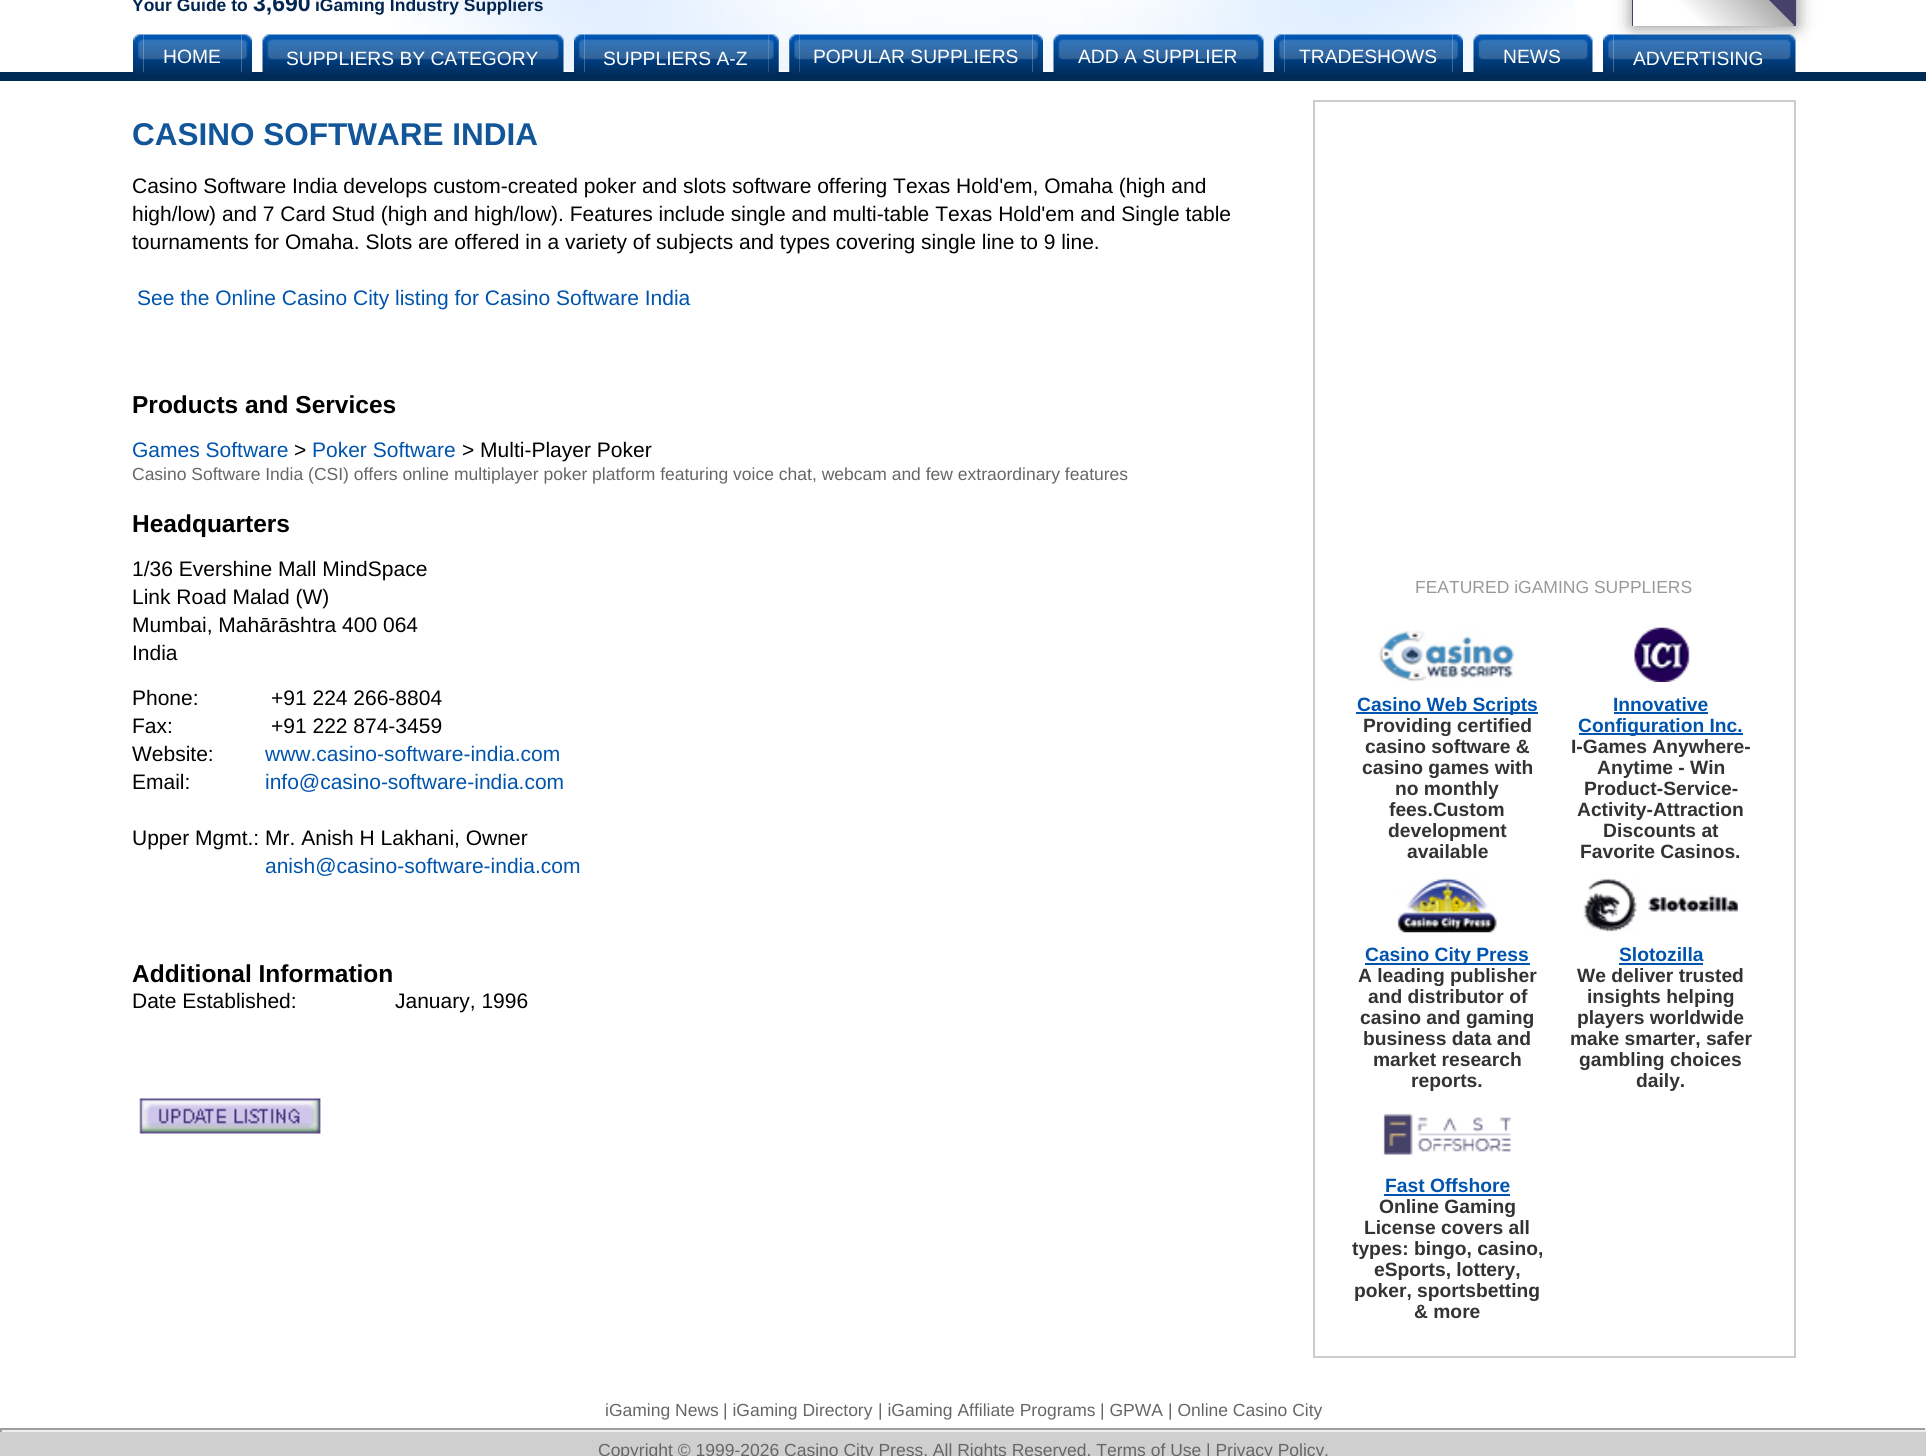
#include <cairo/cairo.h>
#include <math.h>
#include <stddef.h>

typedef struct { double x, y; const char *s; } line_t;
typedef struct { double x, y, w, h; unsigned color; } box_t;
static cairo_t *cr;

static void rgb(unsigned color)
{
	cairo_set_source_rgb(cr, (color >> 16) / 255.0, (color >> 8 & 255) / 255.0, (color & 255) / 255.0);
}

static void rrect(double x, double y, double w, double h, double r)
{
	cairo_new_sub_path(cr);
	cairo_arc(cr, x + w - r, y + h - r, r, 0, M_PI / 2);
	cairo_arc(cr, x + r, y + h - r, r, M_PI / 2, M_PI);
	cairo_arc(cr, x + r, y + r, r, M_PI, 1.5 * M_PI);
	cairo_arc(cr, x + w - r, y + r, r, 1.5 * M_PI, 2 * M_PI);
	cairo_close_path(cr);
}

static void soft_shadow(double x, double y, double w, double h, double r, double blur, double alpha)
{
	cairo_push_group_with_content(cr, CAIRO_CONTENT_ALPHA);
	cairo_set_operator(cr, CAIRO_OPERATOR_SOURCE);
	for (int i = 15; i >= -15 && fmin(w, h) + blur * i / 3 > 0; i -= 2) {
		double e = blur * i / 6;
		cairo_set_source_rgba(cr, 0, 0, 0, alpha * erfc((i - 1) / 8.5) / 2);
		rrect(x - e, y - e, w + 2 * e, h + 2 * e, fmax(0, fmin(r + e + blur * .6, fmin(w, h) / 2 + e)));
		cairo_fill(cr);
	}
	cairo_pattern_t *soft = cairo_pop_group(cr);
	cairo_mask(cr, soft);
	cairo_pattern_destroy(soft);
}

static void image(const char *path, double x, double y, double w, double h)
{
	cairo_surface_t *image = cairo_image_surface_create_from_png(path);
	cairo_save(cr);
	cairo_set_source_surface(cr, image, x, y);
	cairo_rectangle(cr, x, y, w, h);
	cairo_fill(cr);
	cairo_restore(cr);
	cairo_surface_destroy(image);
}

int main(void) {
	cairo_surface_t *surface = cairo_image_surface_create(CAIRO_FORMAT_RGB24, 1926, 1456);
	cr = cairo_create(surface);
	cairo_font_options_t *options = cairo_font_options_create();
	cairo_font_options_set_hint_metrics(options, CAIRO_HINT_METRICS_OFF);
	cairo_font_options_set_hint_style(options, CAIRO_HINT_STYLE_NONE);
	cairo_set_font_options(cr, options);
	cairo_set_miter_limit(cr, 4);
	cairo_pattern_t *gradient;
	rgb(0xffffff);
	cairo_paint(cr);
	image("img/1.png", 399, 0, 1176, 72);
	rgb(0x002b57);
	cairo_rectangle(cr, 0, 72, 1926, 9);
	cairo_fill(cr);
	image("img/23.png", 1603, 34, 11, 41);
	image("img/24.png", 1613, 34, 172, 41);
	image("img/25.png", 1785, 34, 11, 41);
	rgb(0x808080);
	soft_shadow(1633, -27, 163, 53, 0, 9, 1);
	rgb(0x464169);
	cairo_rectangle(cr, 1632, 0, 164, 26);
	cairo_fill(cr);
	cairo_save(cr);
	cairo_rectangle(cr, 1633, 0, 163, 26);
	cairo_clip(cr);
	gradient = cairo_pattern_create_linear(1713, -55, 1552, 106);
	cairo_pattern_add_color_stop_rgba(gradient, 0, 0.686, 0.686, 0.686, 1);
	cairo_pattern_add_color_stop_rgba(gradient, 0.29, 1, 1, 1, 1);
	cairo_set_source(cr, gradient);
	cairo_pattern_destroy(gradient);
	cairo_new_path(cr);
	cairo_move_to(cr, 1794, 25);
	cairo_line_to(cr, 1633, 187);
	cairo_line_to(cr, 1472, 25);
	cairo_line_to(cr, 1633, -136);
	cairo_close_path(cr);
	cairo_fill(cr);
	cairo_restore(cr);
	image("img/2.png", 133, 34, 11, 41);
	image("img/3.png", 143, 34, 99, 41);
	image("img/4.png", 241, 34, 11, 41);
	image("img/5.png", 262, 34, 11, 41);
	image("img/6.png", 273, 34, 280, 41);
	image("img/7.png", 553, 34, 11, 41);
	image("img/8.png", 574, 34, 11, 41);
	image("img/9.png", 584, 34, 185, 41);
	image("img/10.png", 768, 34, 11, 41);
	image("img/11.png", 789, 34, 11, 41);
	image("img/12.png", 799, 34, 234, 41);
	image("img/13.png", 1032, 34, 11, 41);
	image("img/14.png", 1053, 34, 11, 41);
	image("img/15.png", 1064, 34, 189, 41);
	image("img/16.png", 1253, 34, 11, 41);
	image("img/17.png", 1274, 34, 11, 41);
	image("img/18.png", 1284, 34, 169, 41);
	image("img/19.png", 1452, 34, 11, 41);
	image("img/20.png", 1473, 34, 11, 41);
	image("img/21.png", 1484, 34, 98, 41);
	image("img/22.png", 1582, 34, 11, 41);
	image("img/26.png", 139, 1098, 182, 36);
	cairo_rectangle(cr, 1314, 101, 481, 1256);
	rgb(0xcccccc);
	cairo_stroke(cr);
	image("img/27.png", 1378, 630, 142, 52);
	image("img/28.png", 1634, 627, 56, 55);
	{
		static const box_t items[] = {
			{1356, 712, 182, 2, 0x0054ae},
			{1614, 712, 94, 2, 0x0054ae},
			{1579, 733, 164, 2, 0x0054ae},
		};
		for (size_t i = 0; i < sizeof items / sizeof *items; i++) {
			rgb(items[i].color);
			cairo_rectangle(cr, items[i].x, items[i].y, items[i].w, items[i].h);
			cairo_fill(cr);
		}
	}
	image("img/29.png", 1397, 878, 100, 55);
	image("img/30.png", 1583, 878, 155, 55);
	cairo_rectangle(cr, 1365, 963, 165, 2);
	cairo_fill(cr);
	cairo_rectangle(cr, 1619, 963, 84, 2);
	cairo_fill(cr);
	image("img/31.png", 1383, 1113, 128, 42);
	{
		static const box_t items[] = {
			{1384, 1194, 126, 2, 0x0054ae},
			{0, 1428, 1926, 2, 0x9f9f9f},
			{1925, 1428, 1, 4, 0xeeeeee},
			{0, 1430, 1926, 2, 0xeeeeee},
			{0, 1428, 2, 4, 0x9f9f9f},
			{0, 1432, 1926, 24, 0xcfcfcf},
		};
		for (size_t i = 0; i < sizeof items / sizeof *items; i++) {
			rgb(items[i].color);
			cairo_rectangle(cr, items[i].x, items[i].y, items[i].w, items[i].h);
			cairo_fill(cr);
		}
	}
	cairo_select_font_face(cr, "Liberation Sans", CAIRO_FONT_SLANT_NORMAL, CAIRO_FONT_WEIGHT_BOLD);
	cairo_set_font_size(cr, 17.5);
	rgb(0x012451);
	cairo_move_to(cr, 132, 11);
	cairo_show_text(cr, "Your Guide to");
	cairo_set_font_size(cr, 23);
	cairo_move_to(cr, 253, 11);
	cairo_show_text(cr, "3,690");
	cairo_set_font_size(cr, 17.5);
	cairo_move_to(cr, 315, 11);
	cairo_show_text(cr, "iGaming Industry Suppliers");
	cairo_select_font_face(cr, "Liberation Sans", CAIRO_FONT_SLANT_NORMAL, CAIRO_FONT_WEIGHT_NORMAL);
	cairo_set_font_size(cr, 19.25);
	rgb(0xffffff);
	{
		static const line_t items[] = {
			{163, 63, "HOME"},
			{286, 65, "SUPPLIERS BY CATEGORY"},
			{603, 65, "SUPPLIERS A-Z"},
			{813, 63, "POPULAR SUPPLIERS"},
			{1078, 63, "ADD A SUPPLIER"},
			{1299, 63, "TRADESHOWS"},
			{1503, 63, "NEWS"},
			{1633, 65, "ADVERTISING"},
		};
		for (size_t i = 0; i < sizeof items / sizeof *items; i++) {
			cairo_move_to(cr, items[i].x, items[i].y);
			cairo_show_text(cr, items[i].s);
		}
	}
	cairo_select_font_face(cr, "Liberation Sans", CAIRO_FONT_SLANT_NORMAL, CAIRO_FONT_WEIGHT_BOLD);
	cairo_set_font_size(cr, 31.5);
	rgb(0x125699);
	cairo_move_to(cr, 132, 145);
	cairo_show_text(cr, "CASINO SOFTWARE INDIA");
	cairo_select_font_face(cr, "Liberation Sans", CAIRO_FONT_SLANT_NORMAL, CAIRO_FONT_WEIGHT_NORMAL);
	cairo_set_font_size(cr, 21);
	rgb(0x000000);
	{
		static const line_t items[] = {
			{132, 193, "Casino Software India develops custom-created poker and slots software offering Texas Hold'em, Omaha (high and"},
			{132, 221, "high/low) and 7 Card Stud (high and high/low). Features include single and multi-table Texas Hold'em and Single table"},
			{132, 249, "tournaments for Omaha. Slots are offered in a variety of subjects and types covering single line to 9 line."},
		};
		for (size_t i = 0; i < sizeof items / sizeof *items; i++) {
			cairo_move_to(cr, items[i].x, items[i].y);
			cairo_show_text(cr, items[i].s);
		}
	}
	rgb(0x0054ae);
	cairo_move_to(cr, 137, 305);
	cairo_show_text(cr, "See the Online Casino City listing for Casino Software India");
	cairo_select_font_face(cr, "Liberation Sans", CAIRO_FONT_SLANT_NORMAL, CAIRO_FONT_WEIGHT_BOLD);
	cairo_set_font_size(cr, 24.5);
	rgb(0x000000);
	cairo_move_to(cr, 132, 413);
	cairo_show_text(cr, "Products and Services");
	cairo_select_font_face(cr, "Liberation Sans", CAIRO_FONT_SLANT_NORMAL, CAIRO_FONT_WEIGHT_NORMAL);
	cairo_set_font_size(cr, 21);
	rgb(0x0054ae);
	cairo_move_to(cr, 132, 457);
	cairo_show_text(cr, "Games Software");
	rgb(0x000000);
	cairo_move_to(cr, 294, 457);
	cairo_show_text(cr, ">");
	rgb(0x0054ae);
	cairo_move_to(cr, 312, 457);
	cairo_show_text(cr, "Poker Software");
	rgb(0x000000);
	cairo_move_to(cr, 462, 457);
	cairo_show_text(cr, "> Multi-Player Poker");
	cairo_set_font_size(cr, 17.5);
	rgb(0x666666);
	cairo_move_to(cr, 132, 480);
	cairo_show_text(cr, "Casino Software India (CSI) offers online multiplayer poker platform featuring voice chat, webcam and few extraordinary features");
	cairo_select_font_face(cr, "Liberation Sans", CAIRO_FONT_SLANT_NORMAL, CAIRO_FONT_WEIGHT_BOLD);
	cairo_set_font_size(cr, 24.5);
	rgb(0x000000);
	cairo_move_to(cr, 132, 532);
	cairo_show_text(cr, "Headquarters");
	cairo_select_font_face(cr, "Liberation Sans", CAIRO_FONT_SLANT_NORMAL, CAIRO_FONT_WEIGHT_NORMAL);
	cairo_set_font_size(cr, 21);
	{
		static const line_t items[] = {
			{132, 576, "1/36 Evershine Mall MindSpace"},
			{132, 604, "Link Road Malad (W)"},
			{132, 632, "Mumbai, Mahārāshtra 400 064"},
			{132, 660, "India"},
			{132, 705, "Phone:"},
			{271, 705, "+91 224 266-8804"},
			{132, 733, "Fax:"},
			{271, 733, "+91 222 874-3459"},
			{132, 761, "Website:"},
		};
		for (size_t i = 0; i < sizeof items / sizeof *items; i++) {
			cairo_move_to(cr, items[i].x, items[i].y);
			cairo_show_text(cr, items[i].s);
		}
	}
	rgb(0x0054ae);
	cairo_move_to(cr, 265, 761);
	cairo_show_text(cr, "www.casino-software-india.com");
	rgb(0x000000);
	cairo_move_to(cr, 132, 789);
	cairo_show_text(cr, "Email:");
	rgb(0x0054ae);
	cairo_move_to(cr, 265, 789);
	cairo_show_text(cr, "info@casino-software-india.com");
	rgb(0x000000);
	cairo_move_to(cr, 132, 845);
	cairo_show_text(cr, "Upper Mgmt.: Mr. Anish H Lakhani, Owner");
	rgb(0x0054ae);
	cairo_move_to(cr, 265, 873);
	cairo_show_text(cr, "anish@casino-software-india.com");
	cairo_select_font_face(cr, "Liberation Sans", CAIRO_FONT_SLANT_NORMAL, CAIRO_FONT_WEIGHT_BOLD);
	cairo_set_font_size(cr, 24.5);
	rgb(0x000000);
	cairo_move_to(cr, 132, 982);
	cairo_show_text(cr, "Additional Information");
	cairo_select_font_face(cr, "Liberation Sans", CAIRO_FONT_SLANT_NORMAL, CAIRO_FONT_WEIGHT_NORMAL);
	cairo_set_font_size(cr, 21);
	cairo_move_to(cr, 132, 1008);
	cairo_show_text(cr, "Date Established:");
	cairo_move_to(cr, 395, 1008);
	cairo_show_text(cr, "January, 1996");
	cairo_set_font_size(cr, 17.5);
	rgb(0x999999);
	cairo_move_to(cr, 1415, 593);
	cairo_show_text(cr, "FEATURED iGAMING SUPPLIERS");
	cairo_select_font_face(cr, "Liberation Sans", CAIRO_FONT_SLANT_NORMAL, CAIRO_FONT_WEIGHT_BOLD);
	cairo_set_font_size(cr, 19.25);
	rgb(0x0054ae);
	cairo_move_to(cr, 1357, 711);
	cairo_show_text(cr, "Casino Web Scripts");
	rgb(0x333333);
	{
		static const line_t items[] = {
			{1363, 732, "Providing certified"},
			{1365, 753, "casino software &"},
			{1362, 774, "casino games with"},
			{1395, 795, "no monthly"},
			{1389, 816, "fees.Custom"},
			{1388, 837, "development"},
			{1407, 858, "available"},
		};
		for (size_t i = 0; i < sizeof items / sizeof *items; i++) {
			cairo_move_to(cr, items[i].x, items[i].y);
			cairo_show_text(cr, items[i].s);
		}
	}
	rgb(0x0054ae);
	cairo_move_to(cr, 1613, 711);
	cairo_show_text(cr, "Innovative");
	cairo_move_to(cr, 1578, 732);
	cairo_show_text(cr, "Configuration Inc.");
	rgb(0x333333);
	{
		static const line_t items[] = {
			{1571, 753, "I-Games Anywhere-"},
			{1597, 774, "Anytime - Win"},
			{1584, 795, "Product-Service-"},
			{1577, 816, "Activity-Attraction"},
			{1603, 837, "Discounts at"},
			{1580, 858, "Favorite Casinos."},
		};
		for (size_t i = 0; i < sizeof items / sizeof *items; i++) {
			cairo_move_to(cr, items[i].x, items[i].y);
			cairo_show_text(cr, items[i].s);
		}
	}
	rgb(0x0054ae);
	cairo_move_to(cr, 1365, 961);
	cairo_show_text(cr, "Casino City Press");
	rgb(0x333333);
	{
		static const line_t items[] = {
			{1358, 982, "A leading publisher"},
			{1368, 1003, "and distributor of"},
			{1360, 1024, "casino and gaming"},
			{1363, 1045, "business data and"},
			{1373, 1066, "market research"},
			{1411, 1087, "reports."},
		};
		for (size_t i = 0; i < sizeof items / sizeof *items; i++) {
			cairo_move_to(cr, items[i].x, items[i].y);
			cairo_show_text(cr, items[i].s);
		}
	}
	rgb(0x0054ae);
	cairo_move_to(cr, 1619, 961);
	cairo_show_text(cr, "Slotozilla");
	rgb(0x333333);
	{
		static const line_t items[] = {
			{1577, 982, "We deliver trusted"},
			{1587, 1003, "insights helping"},
			{1577, 1024, "players worldwide"},
			{1570, 1045, "make smarter, safer"},
			{1579, 1066, "gambling choices"},
			{1636, 1087, "daily."},
		};
		for (size_t i = 0; i < sizeof items / sizeof *items; i++) {
			cairo_move_to(cr, items[i].x, items[i].y);
			cairo_show_text(cr, items[i].s);
		}
	}
	rgb(0x0054ae);
	cairo_move_to(cr, 1385, 1192);
	cairo_show_text(cr, "Fast Offshore");
	rgb(0x333333);
	{
		static const line_t items[] = {
			{1379, 1213, "Online Gaming"},
			{1364, 1234, "License covers all"},
			{1352, 1255, "types: bingo, casino,"},
			{1374, 1276, "eSports, lottery,"},
			{1354, 1297, "poker, sportsbetting"},
			{1414, 1318, "& more"},
		};
		for (size_t i = 0; i < sizeof items / sizeof *items; i++) {
			cairo_move_to(cr, items[i].x, items[i].y);
			cairo_show_text(cr, items[i].s);
		}
	}
	cairo_select_font_face(cr, "Liberation Sans", CAIRO_FONT_SLANT_NORMAL, CAIRO_FONT_WEIGHT_NORMAL);
	cairo_set_font_size(cr, 17.5);
	rgb(0x666666);
	{
		static const line_t items[] = {
			{605, 1416, "iGaming News"},
			{723, 1416, "| iGaming Directory"},
			{878, 1416, "| iGaming Affiliate Programs"},
			{1100, 1416, "| GPWA"},
			{1168, 1416, "| Online Casino City"},
			{598, 1456, "Copyright © 1999-2026 Casino City Press. All Rights Reserved. Terms of Use"},
			{1206, 1456, "| Privacy Policy"},
			{1324, 1456, "."},
		};
		for (size_t i = 0; i < sizeof items / sizeof *items; i++) {
			cairo_move_to(cr, items[i].x, items[i].y);
			cairo_show_text(cr, items[i].s);
		}
	}
	cairo_surface_write_to_png(surface, "page.png");
	cairo_font_options_destroy(options);
	cairo_destroy(cr);
	cairo_surface_destroy(surface);
	return 0;
}
